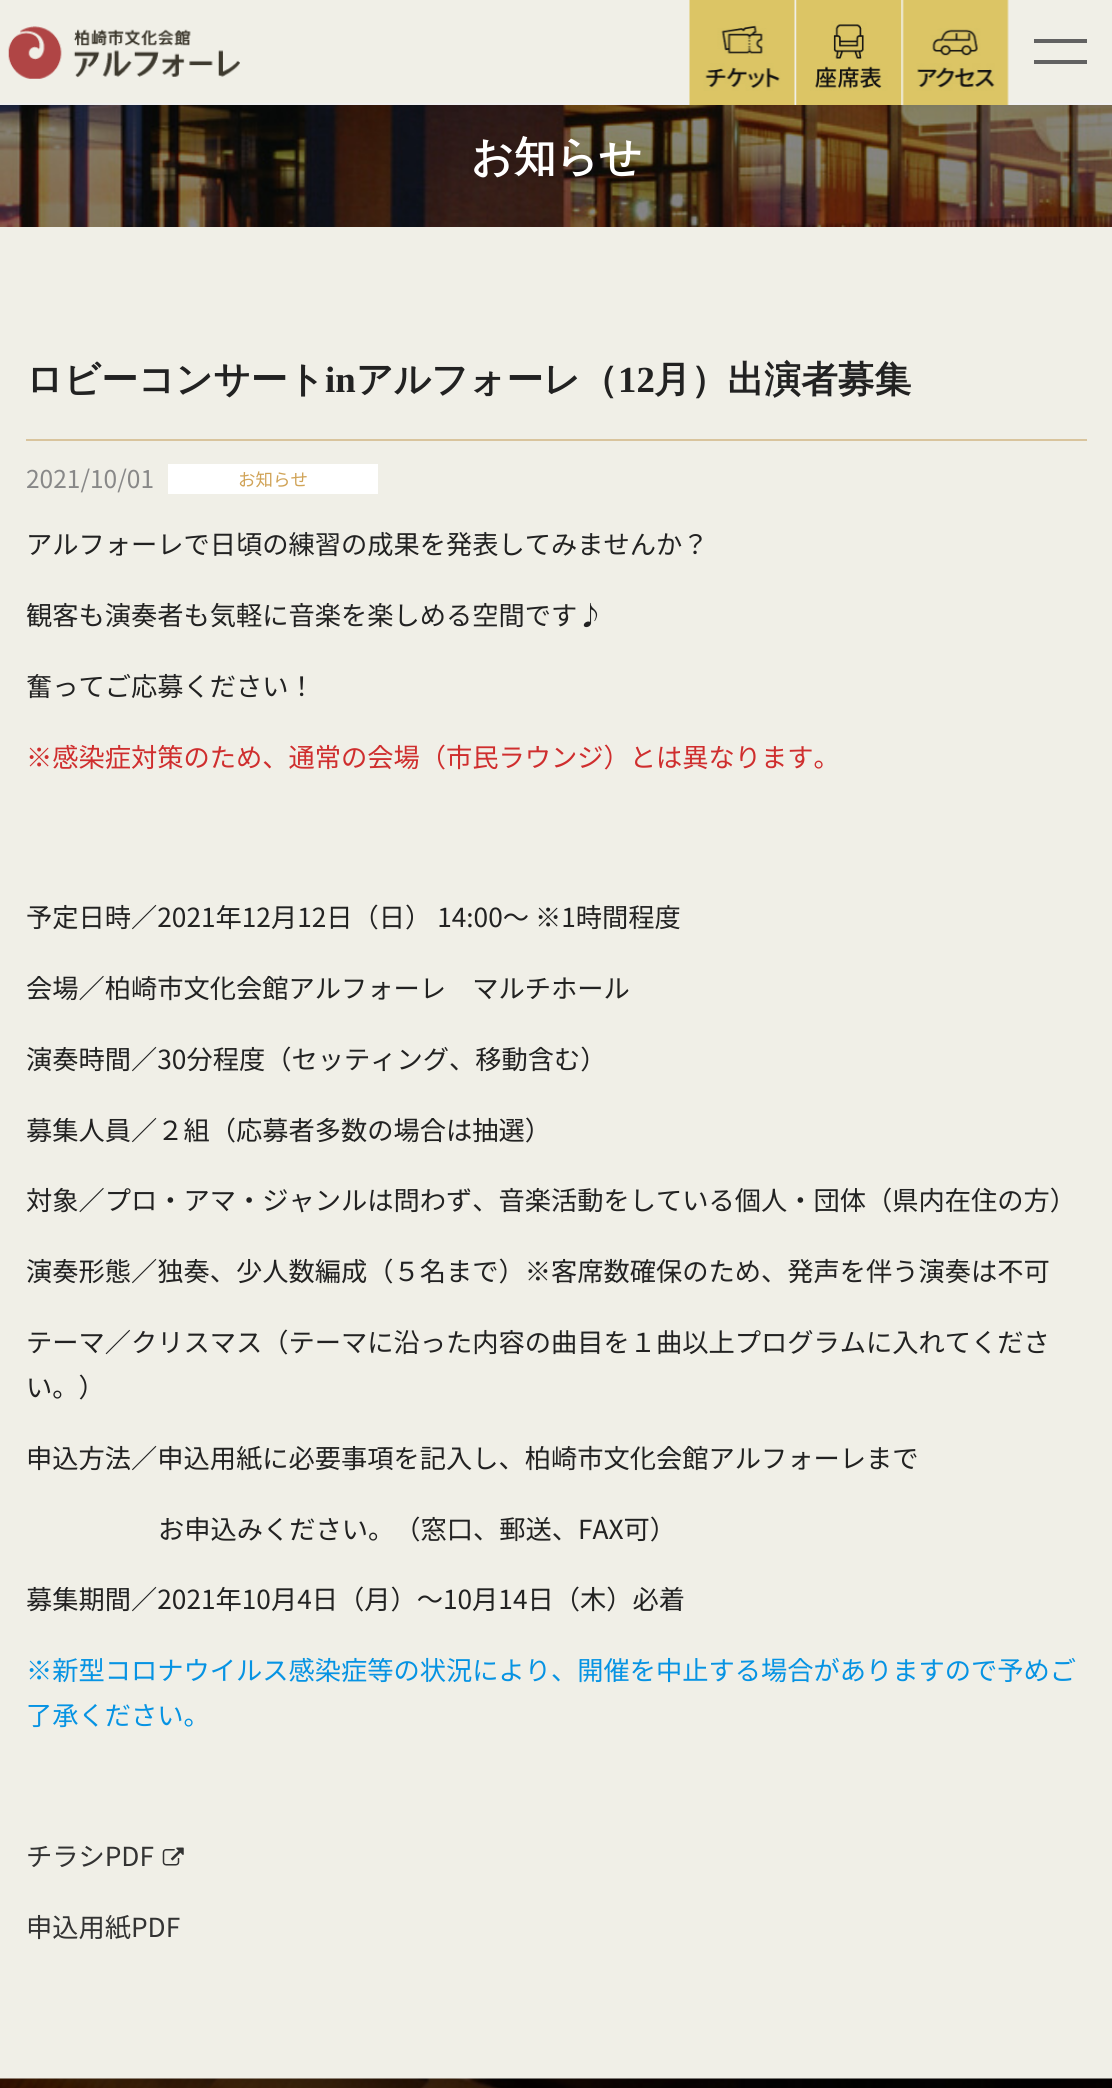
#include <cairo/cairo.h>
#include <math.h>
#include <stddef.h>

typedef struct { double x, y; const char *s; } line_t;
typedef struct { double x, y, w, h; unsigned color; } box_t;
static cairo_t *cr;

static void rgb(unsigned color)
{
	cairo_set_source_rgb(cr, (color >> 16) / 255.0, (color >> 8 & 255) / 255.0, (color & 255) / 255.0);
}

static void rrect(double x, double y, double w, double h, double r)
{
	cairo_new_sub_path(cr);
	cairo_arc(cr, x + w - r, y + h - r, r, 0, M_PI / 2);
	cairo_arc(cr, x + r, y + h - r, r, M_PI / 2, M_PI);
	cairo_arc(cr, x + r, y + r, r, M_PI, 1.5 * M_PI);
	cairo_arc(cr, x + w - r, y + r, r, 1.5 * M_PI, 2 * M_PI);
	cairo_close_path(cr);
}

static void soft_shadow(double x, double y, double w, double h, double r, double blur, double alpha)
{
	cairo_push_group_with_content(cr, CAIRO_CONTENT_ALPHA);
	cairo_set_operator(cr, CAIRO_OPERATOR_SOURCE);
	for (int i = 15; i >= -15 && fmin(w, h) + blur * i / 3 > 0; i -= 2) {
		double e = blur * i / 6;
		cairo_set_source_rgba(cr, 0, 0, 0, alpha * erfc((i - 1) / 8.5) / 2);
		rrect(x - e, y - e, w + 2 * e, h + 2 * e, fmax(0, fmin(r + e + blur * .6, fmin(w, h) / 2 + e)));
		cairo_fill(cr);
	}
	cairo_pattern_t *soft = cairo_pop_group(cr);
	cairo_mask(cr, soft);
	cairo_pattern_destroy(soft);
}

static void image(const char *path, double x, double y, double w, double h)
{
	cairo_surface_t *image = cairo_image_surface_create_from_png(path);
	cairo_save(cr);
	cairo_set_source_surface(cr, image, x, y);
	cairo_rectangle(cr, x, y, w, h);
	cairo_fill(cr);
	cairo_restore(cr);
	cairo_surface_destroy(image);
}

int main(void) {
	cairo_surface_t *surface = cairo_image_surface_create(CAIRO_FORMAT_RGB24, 1112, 2088);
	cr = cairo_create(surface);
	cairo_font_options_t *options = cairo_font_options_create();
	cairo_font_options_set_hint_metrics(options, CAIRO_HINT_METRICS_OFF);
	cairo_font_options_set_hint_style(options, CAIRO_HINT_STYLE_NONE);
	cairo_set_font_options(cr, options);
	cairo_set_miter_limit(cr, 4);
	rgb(0xf0efe7);
	cairo_paint(cr);
	image("img/5.png", 0, 105, 1112, 122);
	rgb(0x000000);
	soft_shadow(0, 2, 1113, 105, 0, 2.5, 0.05);
	rgb(0xf0efe7);
	cairo_rectangle(cr, 0, 0, 1112, 103);
	cairo_fill(cr);
	rgb(0xefefef);
	cairo_rectangle(cr, 0, 103, 1112, 2);
	cairo_fill(cr);
	image("img/1.png", 8, 26, 232, 53);
	image("img/2.png", 689, 0, 106, 105);
	image("img/3.png", 796, 0, 106, 105);
	image("img/4.png", 902, 0, 107, 105);
	{
		static const box_t items[] = {
			{1034, 39, 53, 4, 0x626262},
			{1034, 60, 53, 4, 0x626262},
			{26, 439, 1061, 2, 0xd9c49d},
			{168, 464, 210, 30, 0xffffff},
		};
		for (size_t i = 0; i < sizeof items / sizeof *items; i++) {
			rgb(items[i].color);
			cairo_rectangle(cr, items[i].x, items[i].y, items[i].w, items[i].h);
			cairo_fill(cr);
		}
	}
	image("img/6.png", 162, 1847, 22, 19);
	image("img/7.png", 0, 2078, 1112, 10);
	cairo_select_font_face(cr, "WenQuanYi Zen Hei", CAIRO_FONT_SLANT_NORMAL, CAIRO_FONT_WEIGHT_BOLD);
	cairo_set_font_size(cr, 42);
	cairo_move_to(cr, 471, 171);
	cairo_show_text(cr, "お知らせ");
	cairo_set_font_size(cr, 36.75);
	rgb(0x222222);
	cairo_move_to(cr, 26, 392);
	cairo_show_text(cr, "ロビーコンサート");
	cairo_select_font_face(cr, "Liberation Serif", CAIRO_FONT_SLANT_NORMAL, CAIRO_FONT_WEIGHT_BOLD);
	cairo_move_to(cr, 325, 392);
	cairo_show_text(cr, "in");
	cairo_select_font_face(cr, "WenQuanYi Zen Hei", CAIRO_FONT_SLANT_NORMAL, CAIRO_FONT_WEIGHT_BOLD);
	cairo_move_to(cr, 356, 392);
	cairo_show_text(cr, "アルフォーレ（");
	cairo_select_font_face(cr, "Liberation Serif", CAIRO_FONT_SLANT_NORMAL, CAIRO_FONT_WEIGHT_BOLD);
	cairo_move_to(cr, 618, 392);
	cairo_show_text(cr, "12");
	cairo_select_font_face(cr, "WenQuanYi Zen Hei", CAIRO_FONT_SLANT_NORMAL, CAIRO_FONT_WEIGHT_BOLD);
	cairo_move_to(cr, 654, 392);
	cairo_show_text(cr, "月）出演者募集");
	cairo_select_font_face(cr, "Noto Sans JP", CAIRO_FONT_SLANT_NORMAL, CAIRO_FONT_WEIGHT_NORMAL);
	cairo_set_font_size(cr, 24.5);
	rgb(0x888888);
	cairo_move_to(cr, 26, 488);
	cairo_show_text(cr, "2021/10/01");
	cairo_set_font_size(cr, 17.5);
	rgb(0xd0a357);
	cairo_move_to(cr, 238, 486);
	cairo_show_text(cr, "お知らせ");
	cairo_set_font_size(cr, 26.25);
	rgb(0x222222);
	{
		static const line_t items[] = {
			{26, 554, "アルフォーレで日頃の練習の成果を発表してみませんか？"},
			{26, 625, "観客も演奏者も気軽に音楽を楽しめる空間です♪"},
			{26, 696, "奮ってご応募ください！"},
		};
		for (size_t i = 0; i < sizeof items / sizeof *items; i++) {
			cairo_move_to(cr, items[i].x, items[i].y);
			cairo_show_text(cr, items[i].s);
		}
	}
	rgb(0xcf2e2e);
	cairo_move_to(cr, 26, 767);
	cairo_show_text(cr, "※感染症対策のため、通常の会場（市民ラウンジ）とは異なります。");
	rgb(0x222222);
	{
		static const line_t items[] = {
			{26, 927, "予定日時／2021年12月12日（日） 14:00～ ※1時間程度"},
			{26, 998, "会場／柏崎市文化会館アルフォーレ　マルチホール"},
			{26, 1069, "演奏時間／30分程度（セッティング、移動含む）"},
			{26, 1140, "募集人員／２組（応募者多数の場合は抽選）"},
			{26, 1210, "対象／プロ・アマ・ジャンルは問わず、音楽活動をしている個人・団体（県内在住の方）"},
			{26, 1281, "演奏形態／独奏、少人数編成（５名まで）※客席数確保のため、発声を伴う演奏は不可"},
			{26, 1352, "テーマ／クリスマス（テーマに沿った内容の曲目を１曲以上プログラムに入れてくださ"},
			{26, 1397, "い。）"},
			{26, 1468, "申込方法／申込用紙に必要事項を記入し、柏崎市文化会館アルフォーレまで"},
			{158, 1539, "お申込みください。（窓口、郵送、FAX可）"},
			{26, 1609, "募集期間／2021年10月4日（月）～10月14日（木）必着"},
		};
		for (size_t i = 0; i < sizeof items / sizeof *items; i++) {
			cairo_move_to(cr, items[i].x, items[i].y);
			cairo_show_text(cr, items[i].s);
		}
	}
	rgb(0x0693e3);
	cairo_move_to(cr, 26, 1680);
	cairo_show_text(cr, "※新型コロナウイルス感染症等の状況により、開催を中止する場合がありますので予めご");
	cairo_move_to(cr, 26, 1725);
	cairo_show_text(cr, "了承ください。");
	rgb(0x333333);
	cairo_move_to(cr, 26, 1866);
	cairo_show_text(cr, "チラシPDF");
	cairo_move_to(cr, 26, 1937);
	cairo_show_text(cr, "申込用紙PDF");
	cairo_surface_write_to_png(surface, "page.png");
	cairo_font_options_destroy(options);
	cairo_destroy(cr);
	cairo_surface_destroy(surface);
	return 0;
}
